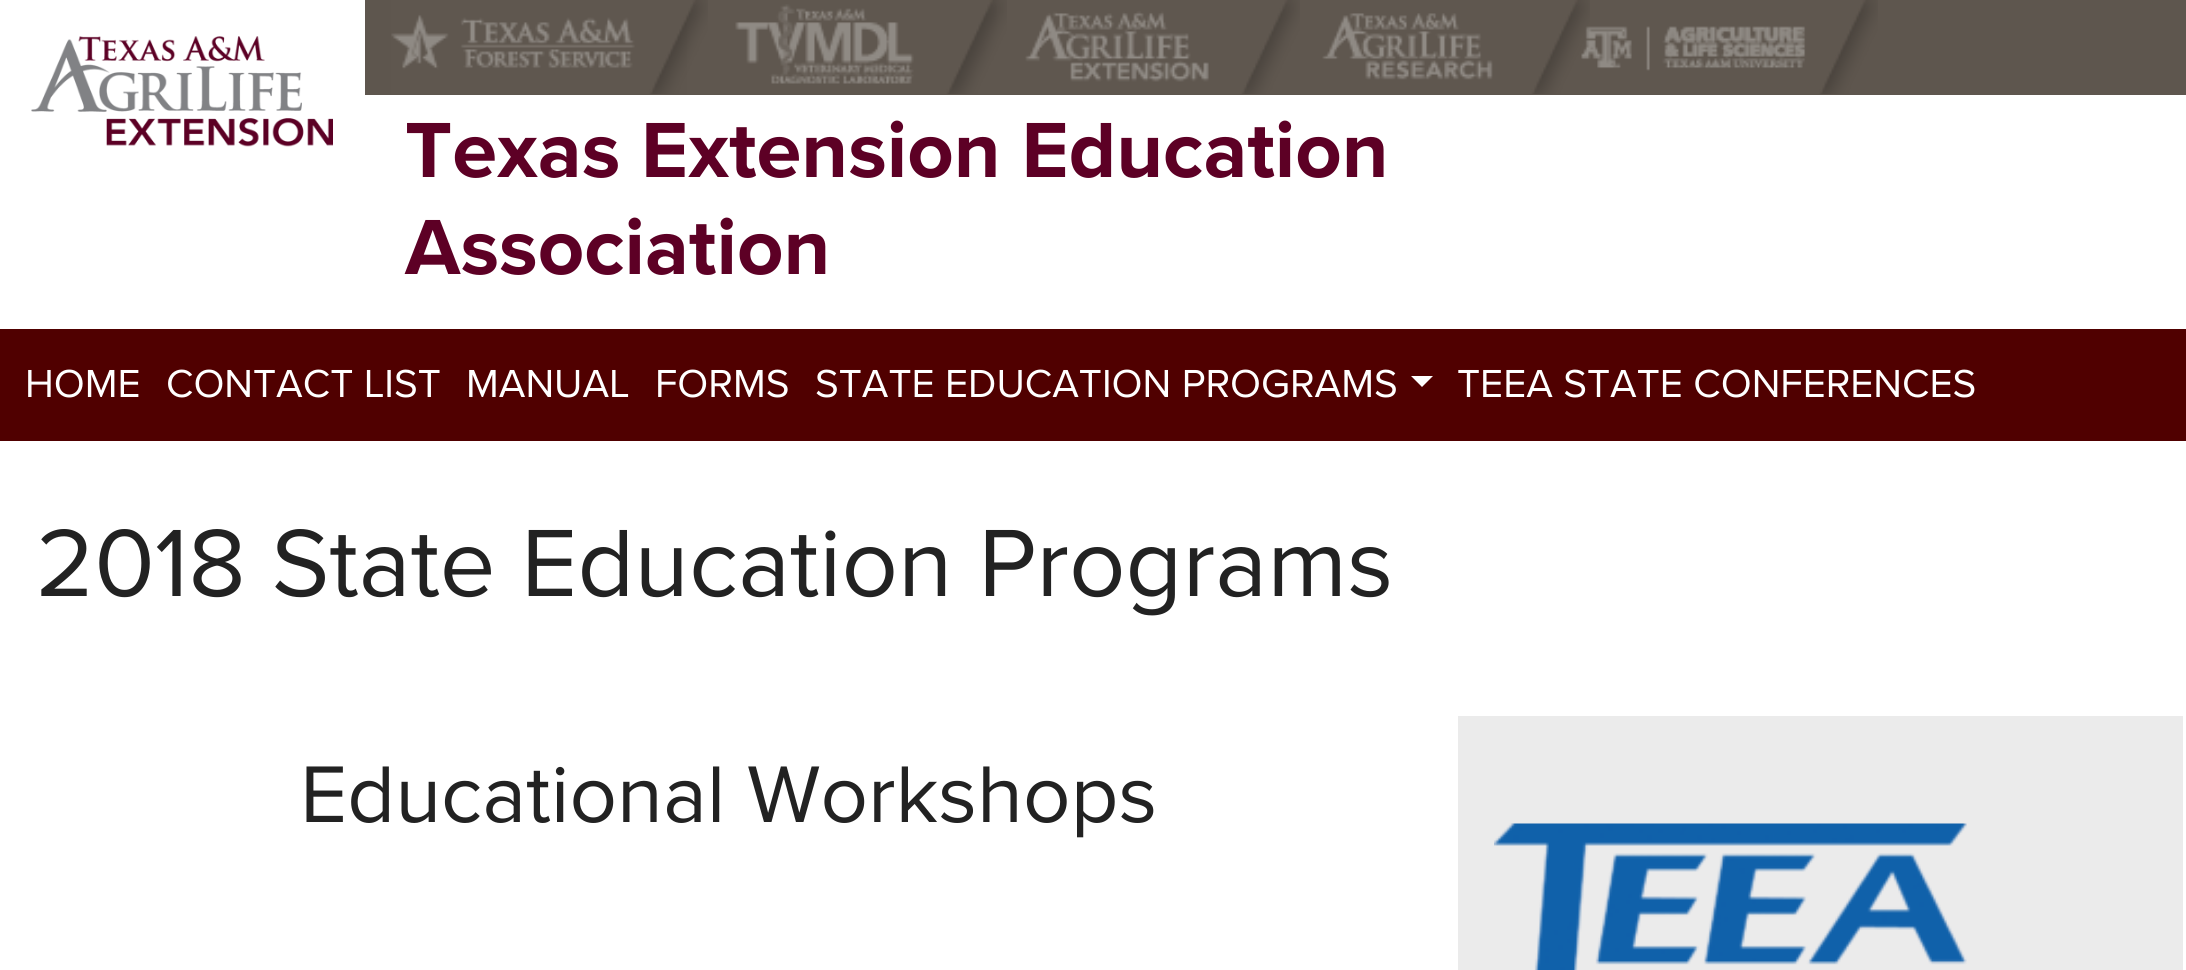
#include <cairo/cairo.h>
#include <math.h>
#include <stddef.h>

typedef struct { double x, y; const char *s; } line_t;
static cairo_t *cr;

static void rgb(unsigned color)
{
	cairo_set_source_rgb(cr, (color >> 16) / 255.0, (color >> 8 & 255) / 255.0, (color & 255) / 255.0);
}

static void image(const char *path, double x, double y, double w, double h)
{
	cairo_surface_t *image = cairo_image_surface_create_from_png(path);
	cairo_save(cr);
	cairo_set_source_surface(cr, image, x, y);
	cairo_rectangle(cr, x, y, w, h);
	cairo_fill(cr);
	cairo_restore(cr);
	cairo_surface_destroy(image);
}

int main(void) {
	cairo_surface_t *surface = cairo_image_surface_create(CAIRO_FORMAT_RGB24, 2186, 970);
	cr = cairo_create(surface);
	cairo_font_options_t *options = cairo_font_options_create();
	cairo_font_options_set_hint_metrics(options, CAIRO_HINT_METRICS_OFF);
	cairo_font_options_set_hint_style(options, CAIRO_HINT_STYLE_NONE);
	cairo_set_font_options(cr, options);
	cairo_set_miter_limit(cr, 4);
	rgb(0xffffff);
	cairo_paint(cr);
	rgb(0x5e564e);
	cairo_rectangle(cr, 365, 0, 1821, 95);
	cairo_fill(cr);
	image("img/5.png", 1531, 0, 347, 94);
	image("img/4.png", 1241, 0, 349, 94);
	image("img/3.png", 946, 0, 354, 94);
	image("img/2.png", 687, 0, 320, 94);
	image("img/1.png", 391, 0, 317, 94);
	image("img/6.png", 31, 36, 302, 111);
	rgb(0x500000);
	cairo_rectangle(cr, 0, 329, 2186, 112);
	cairo_fill(cr);
	rgb(0xffffff);
	cairo_new_path(cr);
	cairo_move_to(cr, 1411, 376);
	cairo_line_to(cr, 1433, 376);
	cairo_line_to(cr, 1422, 387);
	cairo_close_path(cr);
	cairo_fill(cr);
	rgb(0xebebeb);
	cairo_rectangle(cr, 1458, 716, 725, 254);
	cairo_fill(cr);
	image("img/7.png", 1494, 823, 473, 147);
	cairo_select_font_face(cr, "Proxima Nova", CAIRO_FONT_SLANT_NORMAL, CAIRO_FONT_WEIGHT_BOLD);
	cairo_set_font_size(cr, 81);
	rgb(0x5d0025);
	cairo_move_to(cr, 405, 177);
	cairo_show_text(cr, "Texas Extension Education");
	cairo_move_to(cr, 405, 274);
	cairo_show_text(cr, "Association");
	cairo_select_font_face(cr, "Proxima Nova", CAIRO_FONT_SLANT_NORMAL, CAIRO_FONT_WEIGHT_NORMAL);
	cairo_set_font_size(cr, 40.5);
	rgb(0xffffff);
	{
		static const line_t items[] = {
			{25, 397, "HOME"},
			{166, 397, "CONTACT LIST"},
			{466, 397, "MANUAL"},
			{655, 397, "FORMS"},
			{815, 397, "STATE EDUCATION PROGRAMS"},
			{1457, 397, "TEEA STATE CONFERENCES"},
		};
		for (size_t i = 0; i < sizeof items / sizeof *items; i++) {
			cairo_move_to(cr, items[i].x, items[i].y);
			cairo_show_text(cr, items[i].s);
		}
	}
	cairo_set_font_size(cr, 99);
	rgb(0x222222);
	cairo_move_to(cr, 36, 596);
	cairo_show_text(cr, "2018 State Education Programs");
	cairo_set_font_size(cr, 83.25);
	cairo_move_to(cr, 300, 822);
	cairo_show_text(cr, "Educational Workshops");
	cairo_surface_write_to_png(surface, "page.png");
	cairo_font_options_destroy(options);
	cairo_destroy(cr);
	cairo_surface_destroy(surface);
	return 0;
}
